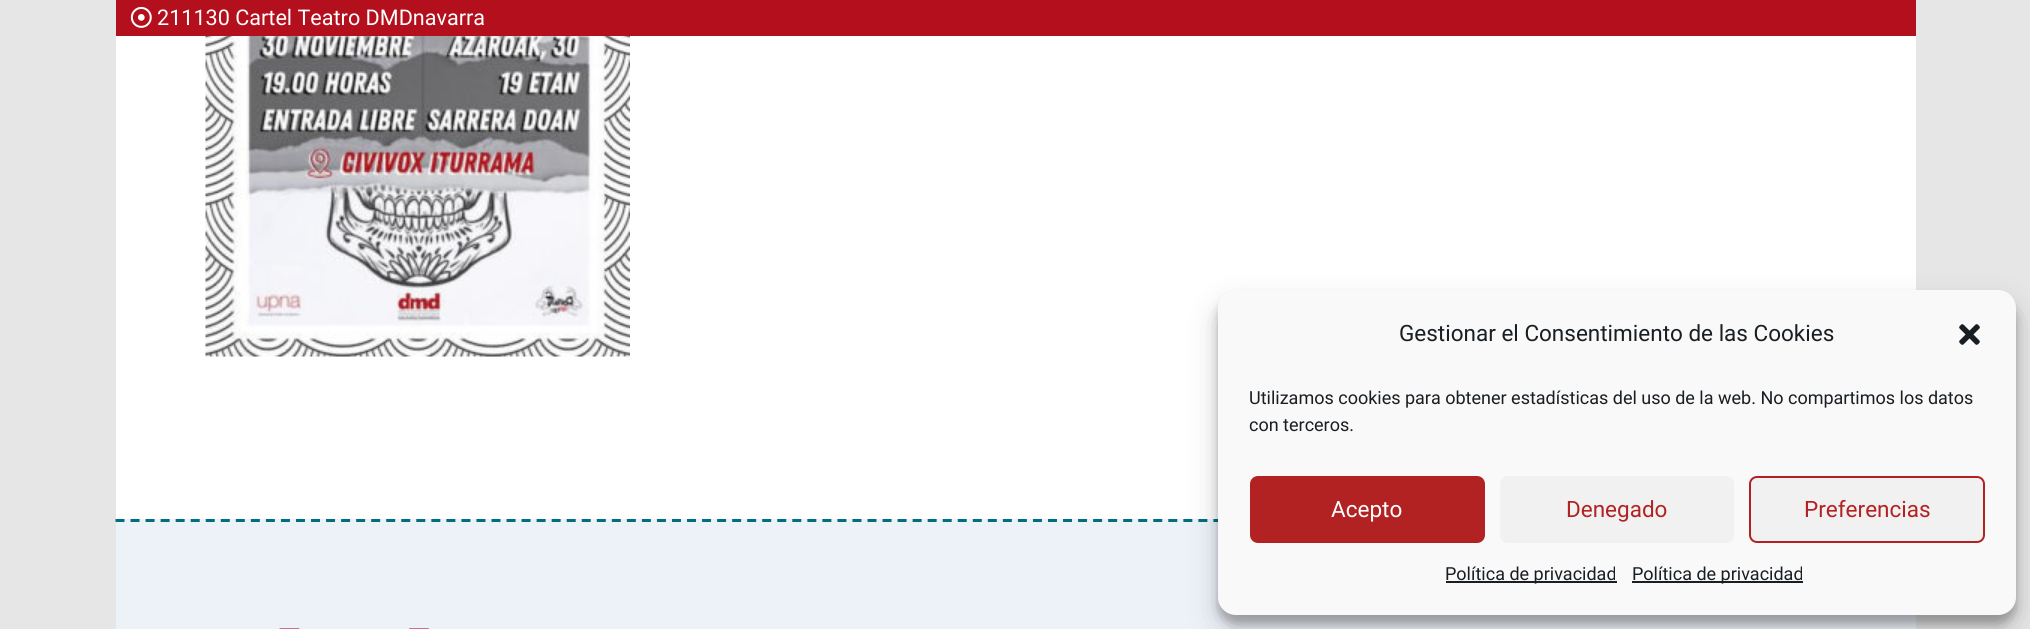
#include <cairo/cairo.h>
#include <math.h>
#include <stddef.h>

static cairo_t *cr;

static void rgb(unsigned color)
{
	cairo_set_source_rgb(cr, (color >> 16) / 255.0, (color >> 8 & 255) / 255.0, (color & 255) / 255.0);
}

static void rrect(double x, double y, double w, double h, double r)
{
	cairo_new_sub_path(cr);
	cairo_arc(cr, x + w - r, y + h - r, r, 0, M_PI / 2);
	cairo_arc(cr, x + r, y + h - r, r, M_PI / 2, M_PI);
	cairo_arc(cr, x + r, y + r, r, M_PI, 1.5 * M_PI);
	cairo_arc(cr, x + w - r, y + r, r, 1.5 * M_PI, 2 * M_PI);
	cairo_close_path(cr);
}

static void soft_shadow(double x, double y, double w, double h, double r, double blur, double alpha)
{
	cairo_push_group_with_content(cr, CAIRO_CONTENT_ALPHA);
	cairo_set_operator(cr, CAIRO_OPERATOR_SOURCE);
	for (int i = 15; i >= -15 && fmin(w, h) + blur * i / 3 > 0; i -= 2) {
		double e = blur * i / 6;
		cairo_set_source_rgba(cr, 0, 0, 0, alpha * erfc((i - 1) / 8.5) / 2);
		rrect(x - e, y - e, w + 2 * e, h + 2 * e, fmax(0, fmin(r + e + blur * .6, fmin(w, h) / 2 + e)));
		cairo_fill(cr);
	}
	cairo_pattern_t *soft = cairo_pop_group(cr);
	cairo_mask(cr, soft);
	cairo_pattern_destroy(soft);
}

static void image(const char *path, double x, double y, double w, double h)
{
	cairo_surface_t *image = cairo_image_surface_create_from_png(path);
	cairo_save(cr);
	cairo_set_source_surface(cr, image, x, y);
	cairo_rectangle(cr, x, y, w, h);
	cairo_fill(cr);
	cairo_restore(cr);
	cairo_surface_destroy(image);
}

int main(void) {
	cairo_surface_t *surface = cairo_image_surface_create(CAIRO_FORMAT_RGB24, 2030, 629);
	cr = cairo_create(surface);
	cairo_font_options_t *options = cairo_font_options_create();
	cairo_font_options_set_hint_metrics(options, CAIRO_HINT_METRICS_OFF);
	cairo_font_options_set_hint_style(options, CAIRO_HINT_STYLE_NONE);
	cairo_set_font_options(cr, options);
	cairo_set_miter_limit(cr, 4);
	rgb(0xe6e6e6);
	cairo_paint(cr);
	rgb(0xffffff);
	cairo_rectangle(cr, 116, 36, 1800, 483);
	cairo_fill(cr);
	rgb(0xb30f1d);
	cairo_rectangle(cr, 116, 0, 1800, 36);
	cairo_fill(cr);
	image("img/1.png", 130, 6, 22, 22);
	image("img/2.png", 205, 36, 425, 321);
	rgb(0xedf2f9);
	cairo_rectangle(cr, 116, 519, 1102, 48);
	cairo_fill(cr);
	cairo_new_path(cr);
	cairo_move_to(cr, 115.5, 520.5);
	cairo_line_to(cr, 1915.5, 520.5);
	rgb(0x006e7f);
	cairo_set_line_width(cr, 3);
	cairo_set_dash(cr, (double[]){9, 6.04}, 2, 0);
	cairo_stroke(cr);
	rgb(0xedf2f9);
	cairo_rectangle(cr, 116, 567, 1800, 62);
	cairo_fill(cr);
	image("img/3.png", 279, 628, 150, 1);
	rgb(0x000000);
	soft_shadow(1218, 299, 798, 325, 18, 4.5, 0.23);
	soft_shadow(1218, 305, 798, 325, 18, 15, 0.19);
	rgb(0xf9f9f9);
	rrect(1219, 291, 796, 323, 17);
	cairo_fill_preserve(cr);
	cairo_set_line_width(cr, 2);
	cairo_set_dash(cr, NULL, 0, 0);
	cairo_stroke(cr);
	image("img/4.png", 1959, 324, 21, 21);
	rgb(0xb22222);
	rrect(1251, 477, 233, 65, 7);
	cairo_fill_preserve(cr);
	cairo_stroke(cr);
	rgb(0xf1f1f1);
	rrect(1500, 476, 234, 67, 8);
	cairo_fill(cr);
	rrect(1750, 477, 234, 65, 7);
	cairo_fill_preserve(cr);
	rgb(0xb22222);
	cairo_stroke(cr);
	rgb(0x191e23);
	cairo_rectangle(cr, 1446, 581, 171, 2);
	cairo_fill(cr);
	cairo_rectangle(cr, 1632, 581, 171, 2);
	cairo_fill(cr);
	cairo_select_font_face(cr, "Roboto", CAIRO_FONT_SLANT_NORMAL, CAIRO_FONT_WEIGHT_NORMAL);
	cairo_set_font_size(cr, 21.6);
	rgb(0xffffff);
	cairo_move_to(cr, 157, 25);
	cairo_show_text(cr, "211130 Cartel Teatro DMDnavarra");
	cairo_set_font_size(cr, 22.5);
	rgb(0x191e23);
	cairo_move_to(cr, 1399, 341);
	cairo_show_text(cr, "Gestionar el Consentimiento de las Cookies");
	cairo_set_font_size(cr, 18);
	cairo_move_to(cr, 1249, 404);
	cairo_show_text(cr, "Utilizamos cookies para obtener estadísticas del uso de la web. No compartimos los datos");
	cairo_move_to(cr, 1249, 431);
	cairo_show_text(cr, "con terceros.");
	cairo_set_font_size(cr, 22.5);
	rgb(0xffffff);
	cairo_move_to(cr, 1331, 517);
	cairo_show_text(cr, "Acepto");
	rgb(0xb22222);
	cairo_move_to(cr, 1566, 517);
	cairo_show_text(cr, "Denegado");
	cairo_move_to(cr, 1804, 517);
	cairo_show_text(cr, "Preferencias");
	cairo_set_font_size(cr, 18);
	rgb(0x191e23);
	cairo_move_to(cr, 1445, 580);
	cairo_show_text(cr, "Política de privacidad");
	cairo_move_to(cr, 1632, 580);
	cairo_show_text(cr, "Política de privacidad");
	cairo_surface_write_to_png(surface, "page.png");
	cairo_font_options_destroy(options);
	cairo_destroy(cr);
	cairo_surface_destroy(surface);
	return 0;
}
